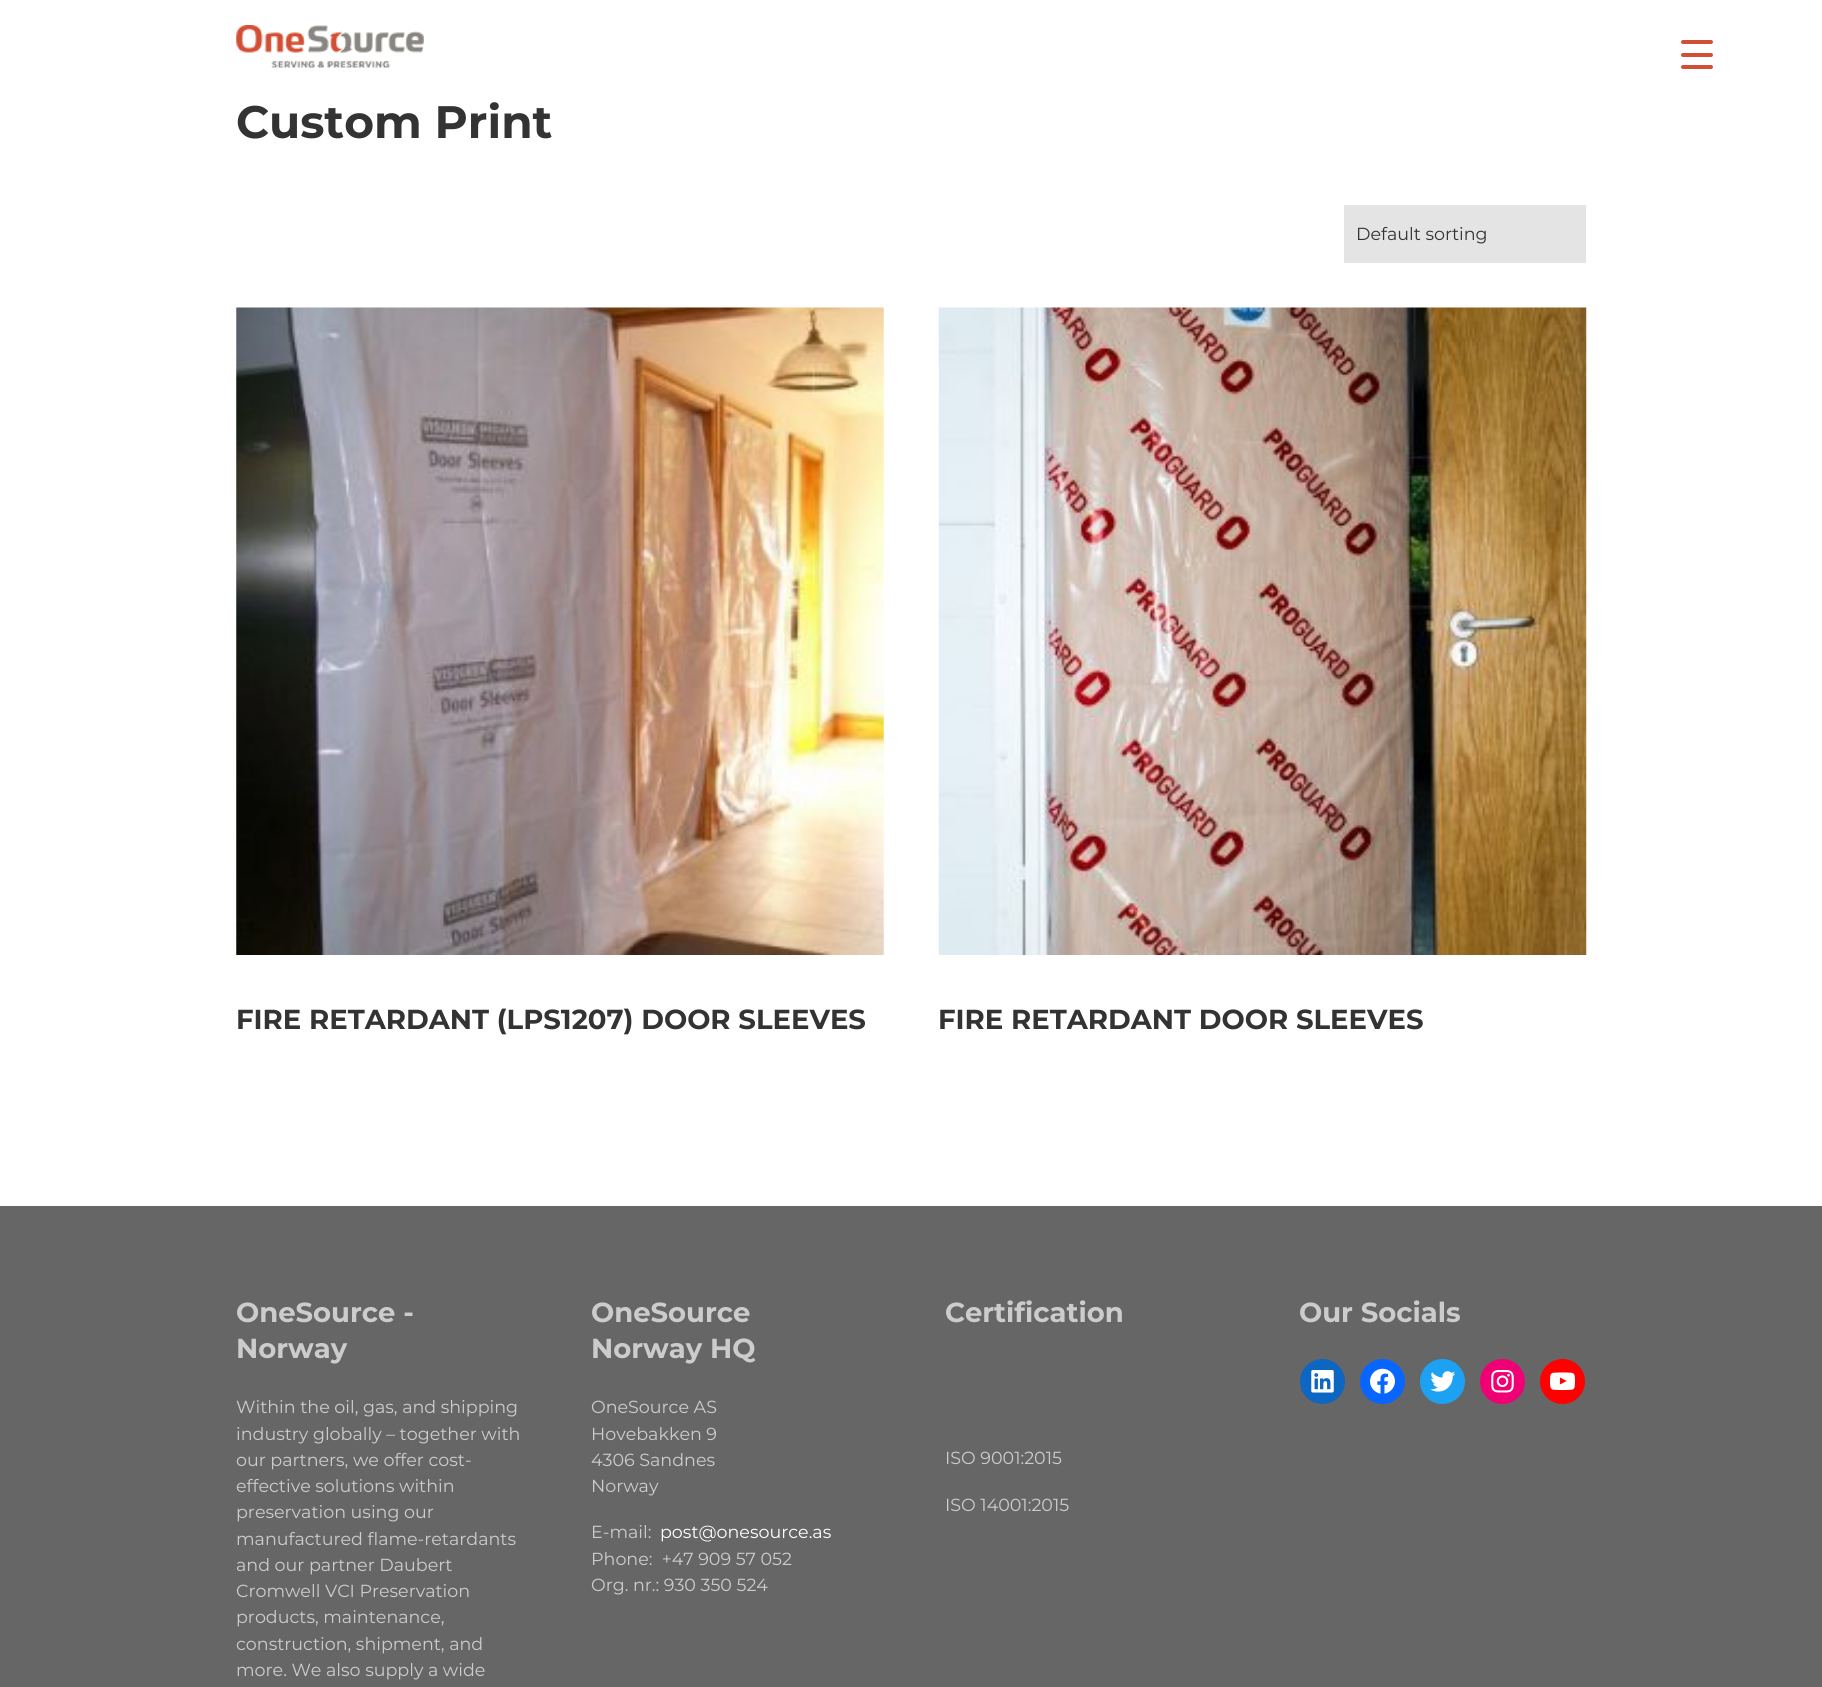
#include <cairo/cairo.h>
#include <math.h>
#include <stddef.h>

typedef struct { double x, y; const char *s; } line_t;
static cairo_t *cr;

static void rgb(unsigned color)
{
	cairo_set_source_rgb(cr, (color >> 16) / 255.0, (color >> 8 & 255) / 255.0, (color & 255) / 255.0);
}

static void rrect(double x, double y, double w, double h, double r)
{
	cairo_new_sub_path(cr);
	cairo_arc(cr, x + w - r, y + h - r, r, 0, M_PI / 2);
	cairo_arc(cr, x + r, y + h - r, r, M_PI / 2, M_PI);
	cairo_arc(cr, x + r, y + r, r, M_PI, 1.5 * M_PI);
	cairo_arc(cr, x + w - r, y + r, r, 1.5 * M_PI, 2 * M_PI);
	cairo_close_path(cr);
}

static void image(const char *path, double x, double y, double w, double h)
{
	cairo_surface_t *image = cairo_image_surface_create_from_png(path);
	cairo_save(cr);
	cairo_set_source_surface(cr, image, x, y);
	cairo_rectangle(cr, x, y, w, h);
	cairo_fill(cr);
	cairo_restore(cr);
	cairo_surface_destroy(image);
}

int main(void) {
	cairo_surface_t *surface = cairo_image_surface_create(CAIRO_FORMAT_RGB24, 1822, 1687);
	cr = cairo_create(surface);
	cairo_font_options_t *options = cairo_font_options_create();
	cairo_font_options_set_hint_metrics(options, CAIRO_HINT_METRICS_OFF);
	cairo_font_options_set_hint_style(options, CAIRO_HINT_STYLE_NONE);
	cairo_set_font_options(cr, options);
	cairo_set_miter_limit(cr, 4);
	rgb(0xffffff);
	cairo_paint(cr);
	rgb(0xd24f33);
	rrect(1681, 53, 32, 4, 2);
	cairo_fill(cr);
	rrect(1681, 40, 32, 4, 2);
	cairo_fill(cr);
	rrect(1681, 65, 32, 4, 2);
	cairo_fill(cr);
	image("img/1.png", 236, 25, 188, 43);
	rgb(0xe4e4e4);
	cairo_rectangle(cr, 1344, 205, 242, 58);
	cairo_fill(cr);
	image("img/2.png", 236, 307, 648, 648);
	image("img/3.png", 938, 307, 649, 648);
	rgb(0x666666);
	cairo_rectangle(cr, 0, 1206, 1822, 481);
	cairo_fill(cr);
	rgb(0x0d66c2);
	cairo_arc(cr, 1322.5, 1381.5, 22.5, 0, 2 * M_PI);
	cairo_fill(cr);
	image("img/4.png", 1311, 1370, 23, 23);
	rgb(0x0866ff);
	cairo_arc(cr, 1382.5, 1381.5, 22.5, 0, 2 * M_PI);
	cairo_fill(cr);
	image("img/5.png", 1370, 1368, 25, 26);
	rgb(0x1da1f2);
	cairo_arc(cr, 1442.5, 1381.5, 22.5, 0, 2 * M_PI);
	cairo_fill(cr);
	image("img/6.png", 1430, 1371, 26, 21);
	rgb(0xf00075);
	cairo_arc(cr, 1502.5, 1381.5, 22.5, 0, 2 * M_PI);
	cairo_fill(cr);
	image("img/7.png", 1491, 1370, 23, 23);
	rgb(0xff0000);
	cairo_arc(cr, 1562.5, 1381.5, 22.5, 0, 2 * M_PI);
	cairo_fill(cr);
	image("img/8.png", 1550, 1372, 25, 19);
	cairo_select_font_face(cr, "Montserrat", CAIRO_FONT_SLANT_NORMAL, CAIRO_FONT_WEIGHT_BOLD);
	cairo_set_font_size(cr, 45.5);
	rgb(0x333333);
	cairo_move_to(cr, 236, 138);
	cairo_show_text(cr, "Custom Print");
	cairo_select_font_face(cr, "Montserrat", CAIRO_FONT_SLANT_NORMAL, CAIRO_FONT_WEIGHT_NORMAL);
	cairo_set_font_size(cr, 17.5);
	cairo_move_to(cr, 1356, 240);
	cairo_show_text(cr, "Default sorting");
	cairo_select_font_face(cr, "Montserrat", CAIRO_FONT_SLANT_NORMAL, CAIRO_FONT_WEIGHT_BOLD);
	cairo_set_font_size(cr, 27.5);
	cairo_move_to(cr, 236, 1029);
	cairo_show_text(cr, "FIRE RETARDANT (LPS1207) DOOR SLEEVES");
	cairo_move_to(cr, 938, 1029);
	cairo_show_text(cr, "FIRE RETARDANT DOOR SLEEVES");
	rgb(0xcccccc);
	cairo_move_to(cr, 236, 1322);
	cairo_show_text(cr, "OneSource -");
	cairo_move_to(cr, 236, 1358);
	cairo_show_text(cr, "Norway");
	cairo_select_font_face(cr, "Montserrat", CAIRO_FONT_SLANT_NORMAL, CAIRO_FONT_WEIGHT_NORMAL);
	cairo_set_font_size(cr, 17.5);
	{
		static const line_t items[] = {
			{236, 1413, "Within the oil, gas, and shipping"},
			{236, 1440, "industry globally – together with"},
			{236, 1466, "our partners, we offer cost-"},
			{236, 1492, "effective solutions within"},
			{236, 1518, "preservation using our"},
			{236, 1545, "manufactured flame-retardants"},
			{236, 1571, "and our partner Daubert"},
			{236, 1597, "Cromwell VCI Preservation"},
			{236, 1623, "products, maintenance,"},
			{236, 1650, "construction, shipment, and"},
			{236, 1676, "more. We also supply a wide"},
		};
		for (size_t i = 0; i < sizeof items / sizeof *items; i++) {
			cairo_move_to(cr, items[i].x, items[i].y);
			cairo_show_text(cr, items[i].s);
		}
	}
	cairo_select_font_face(cr, "Montserrat", CAIRO_FONT_SLANT_NORMAL, CAIRO_FONT_WEIGHT_BOLD);
	cairo_set_font_size(cr, 27.5);
	cairo_move_to(cr, 591, 1322);
	cairo_show_text(cr, "OneSource");
	cairo_move_to(cr, 591, 1358);
	cairo_show_text(cr, "Norway HQ");
	cairo_select_font_face(cr, "Montserrat", CAIRO_FONT_SLANT_NORMAL, CAIRO_FONT_WEIGHT_NORMAL);
	cairo_set_font_size(cr, 17.5);
	{
		static const line_t items[] = {
			{591, 1413, "OneSource AS"},
			{591, 1440, "Hovebakken 9"},
			{591, 1466, "4306 Sandnes"},
			{591, 1492, "Norway"},
			{591, 1538, "E-mail:"},
		};
		for (size_t i = 0; i < sizeof items / sizeof *items; i++) {
			cairo_move_to(cr, items[i].x, items[i].y);
			cairo_show_text(cr, items[i].s);
		}
	}
	rgb(0xffffff);
	cairo_move_to(cr, 660, 1538);
	cairo_show_text(cr, "post@onesource.as");
	rgb(0xcccccc);
	cairo_move_to(cr, 591, 1565);
	cairo_show_text(cr, "Phone:  +47 909 57 052");
	cairo_move_to(cr, 591, 1591);
	cairo_show_text(cr, "Org. nr.: 930 350 524");
	cairo_select_font_face(cr, "Montserrat", CAIRO_FONT_SLANT_NORMAL, CAIRO_FONT_WEIGHT_BOLD);
	cairo_set_font_size(cr, 27.5);
	cairo_move_to(cr, 945, 1322);
	cairo_show_text(cr, "Certification");
	cairo_select_font_face(cr, "Montserrat", CAIRO_FONT_SLANT_NORMAL, CAIRO_FONT_WEIGHT_NORMAL);
	cairo_set_font_size(cr, 17.5);
	cairo_move_to(cr, 945, 1464);
	cairo_show_text(cr, "ISO 9001:2015");
	cairo_move_to(cr, 945, 1511);
	cairo_show_text(cr, "ISO 14001:2015");
	cairo_select_font_face(cr, "Montserrat", CAIRO_FONT_SLANT_NORMAL, CAIRO_FONT_WEIGHT_BOLD);
	cairo_set_font_size(cr, 27.5);
	cairo_move_to(cr, 1299, 1322);
	cairo_show_text(cr, "Our Socials");
	cairo_surface_write_to_png(surface, "page.png");
	cairo_font_options_destroy(options);
	cairo_destroy(cr);
	cairo_surface_destroy(surface);
	return 0;
}
